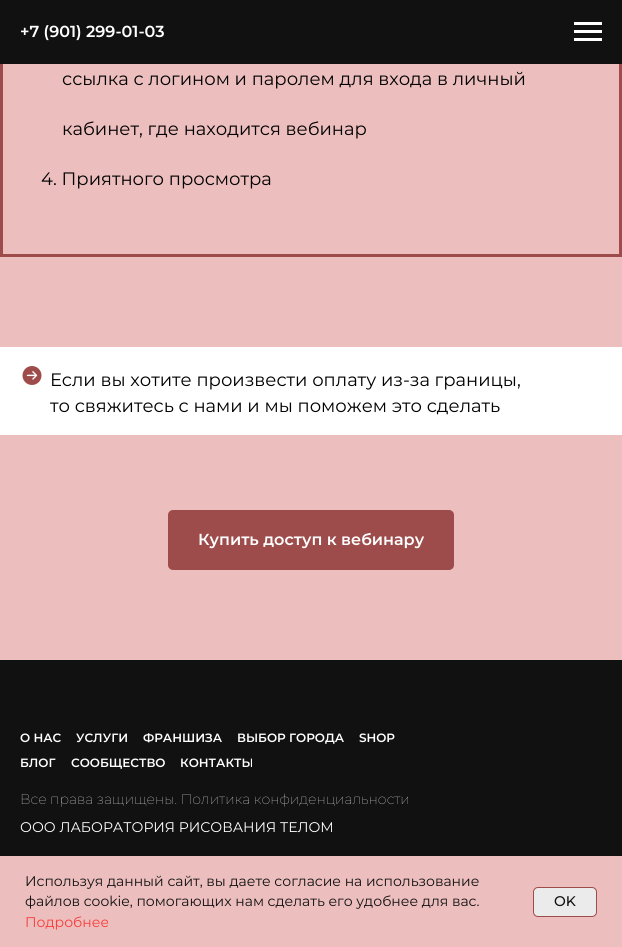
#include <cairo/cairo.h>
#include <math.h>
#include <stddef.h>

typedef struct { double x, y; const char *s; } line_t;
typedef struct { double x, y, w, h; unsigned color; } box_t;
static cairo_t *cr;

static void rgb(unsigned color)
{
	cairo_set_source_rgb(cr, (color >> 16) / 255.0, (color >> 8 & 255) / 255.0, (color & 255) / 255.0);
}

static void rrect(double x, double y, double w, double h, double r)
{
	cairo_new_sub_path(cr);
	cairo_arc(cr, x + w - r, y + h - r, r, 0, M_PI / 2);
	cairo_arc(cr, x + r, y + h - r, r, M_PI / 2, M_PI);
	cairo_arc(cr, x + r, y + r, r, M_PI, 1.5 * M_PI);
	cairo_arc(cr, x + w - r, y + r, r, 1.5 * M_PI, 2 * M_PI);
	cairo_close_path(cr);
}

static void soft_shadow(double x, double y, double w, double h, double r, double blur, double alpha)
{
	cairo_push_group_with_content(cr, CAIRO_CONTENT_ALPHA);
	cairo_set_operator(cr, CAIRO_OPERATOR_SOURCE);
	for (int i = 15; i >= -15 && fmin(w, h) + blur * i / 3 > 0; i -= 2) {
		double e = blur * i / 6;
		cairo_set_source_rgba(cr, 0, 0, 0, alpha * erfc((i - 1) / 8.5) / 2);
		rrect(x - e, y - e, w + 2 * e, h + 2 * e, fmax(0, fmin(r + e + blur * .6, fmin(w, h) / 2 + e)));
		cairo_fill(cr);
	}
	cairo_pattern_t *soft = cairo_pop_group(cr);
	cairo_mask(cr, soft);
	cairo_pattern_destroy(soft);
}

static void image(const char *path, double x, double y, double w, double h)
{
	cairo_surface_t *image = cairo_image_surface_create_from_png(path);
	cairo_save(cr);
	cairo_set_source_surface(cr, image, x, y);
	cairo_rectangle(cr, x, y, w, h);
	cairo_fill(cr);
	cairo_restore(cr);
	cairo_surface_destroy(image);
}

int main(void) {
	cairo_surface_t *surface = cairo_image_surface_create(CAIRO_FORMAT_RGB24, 622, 947);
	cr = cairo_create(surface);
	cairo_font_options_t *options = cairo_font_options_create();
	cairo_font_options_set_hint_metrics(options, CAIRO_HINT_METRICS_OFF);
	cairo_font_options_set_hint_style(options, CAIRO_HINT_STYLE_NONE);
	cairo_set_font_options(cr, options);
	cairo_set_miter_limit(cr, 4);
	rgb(0xedbebe);
	cairo_paint(cr);
	cairo_rectangle(cr, 1.5, -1.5, 619, 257);
	rgb(0x9e4c4b);
	cairo_set_line_width(cr, 3);
	cairo_stroke(cr);
	{
		static const box_t items[] = {
			{0, 0, 622, 64, 0x111111},
			{574, 22, 28, 3, 0xffffff},
			{574, 30, 28, 3, 0xffffff},
			{574, 38, 28, 3, 0xffffff},
			{0, 347, 622, 88, 0xffffff},
		};
		for (size_t i = 0; i < sizeof items / sizeof *items; i++) {
			rgb(items[i].color);
			cairo_rectangle(cr, items[i].x, items[i].y, items[i].w, items[i].h);
			cairo_fill(cr);
		}
	}
	image("img/1.png", 22, 366, 20, 19);
	rgb(0x9e4c4b);
	rrect(168, 510, 286, 60, 5);
	cairo_fill(cr);
	rgb(0x111111);
	cairo_rectangle(cr, 0, 660, 622, 196);
	cairo_fill(cr);
	rgb(0x000000);
	soft_shadow(0, 856, 622, 91, 0, 2.5, 0.1);
	rgb(0xedbebe);
	cairo_rectangle(cr, 0, 856, 622, 91);
	cairo_fill(cr);
	rgb(0xebebeb);
	rrect(533.5, 887.5, 63, 29, 4.5);
	cairo_fill_preserve(cr);
	rgb(0x9e4c4b);
	cairo_set_line_width(cr, 1);
	cairo_stroke(cr);
	cairo_select_font_face(cr, "Montserrat SemiBold", CAIRO_FONT_SLANT_NORMAL, CAIRO_FONT_WEIGHT_NORMAL);
	cairo_set_font_size(cr, 16);
	rgb(0xffffff);
	cairo_move_to(cr, 20, 37);
	cairo_show_text(cr, "+7 (901) 299-01-03");
	cairo_select_font_face(cr, "Montserrat", CAIRO_FONT_SLANT_NORMAL, CAIRO_FONT_WEIGHT_NORMAL);
	cairo_set_font_size(cr, 18);
	rgb(0x000000);
	{
		static const line_t items[] = {
			{62, 85, "ссылка с логином и паролем для входа в личный"},
			{62, 135, "кабинет, где находится вебинар"},
			{41, 185, "4. Приятного просмотра"},
			{50, 386, "Если вы хотите произвести оплату из-за границы,"},
			{50, 412, "то свяжитесь с нами и мы поможем это сделать"},
		};
		for (size_t i = 0; i < sizeof items / sizeof *items; i++) {
			cairo_move_to(cr, items[i].x, items[i].y);
			cairo_show_text(cr, items[i].s);
		}
	}
	cairo_select_font_face(cr, "Montserrat SemiBold", CAIRO_FONT_SLANT_NORMAL, CAIRO_FONT_WEIGHT_NORMAL);
	cairo_set_font_size(cr, 16);
	rgb(0xffffff);
	cairo_move_to(cr, 198, 545);
	cairo_show_text(cr, "Купить доступ к вебинару");
	cairo_set_font_size(cr, 12);
	{
		static const line_t items[] = {
			{20, 742, "О НАС"},
			{76, 742, "УСЛУГИ"},
			{143, 742, "ФРАНШИЗА"},
			{237, 742, "ВЫБОР ГОРОДА"},
			{359, 742, "SHOP"},
			{20, 767, "БЛОГ"},
			{71, 767, "СООБЩЕСТВО"},
			{180, 767, "КОНТАКТЫ"},
		};
		for (size_t i = 0; i < sizeof items / sizeof *items; i++) {
			cairo_move_to(cr, items[i].x, items[i].y);
			cairo_show_text(cr, items[i].s);
		}
	}
	cairo_select_font_face(cr, "Montserrat Thin", CAIRO_FONT_SLANT_NORMAL, CAIRO_FONT_WEIGHT_NORMAL);
	cairo_set_font_size(cr, 14);
	cairo_move_to(cr, 20, 804);
	cairo_show_text(cr, "Все права защищены. Политика конфиденциальности");
	cairo_select_font_face(cr, "Montserrat", CAIRO_FONT_SLANT_NORMAL, CAIRO_FONT_WEIGHT_NORMAL);
	cairo_move_to(cr, 20, 832);
	cairo_show_text(cr, "ООО ЛАБОРАТОРИЯ РИСОВАНИЯ ТЕЛОМ");
	rgb(0x111111);
	cairo_move_to(cr, 25, 886);
	cairo_show_text(cr, "Используя данный сайт, вы даете согласие на использование");
	cairo_move_to(cr, 25, 906);
	cairo_show_text(cr, "файлов cookie, помогающих нам сделать его удобнее для вас.");
	rgb(0xf73e3b);
	cairo_move_to(cr, 25, 927);
	cairo_show_text(cr, "Подробнее");
	cairo_select_font_face(cr, "Montserrat Medium", CAIRO_FONT_SLANT_NORMAL, CAIRO_FONT_WEIGHT_NORMAL);
	rgb(0x111111);
	cairo_move_to(cr, 554, 906);
	cairo_show_text(cr, "OK");
	cairo_surface_write_to_png(surface, "page.png");
	cairo_font_options_destroy(options);
	cairo_destroy(cr);
	cairo_surface_destroy(surface);
	return 0;
}
